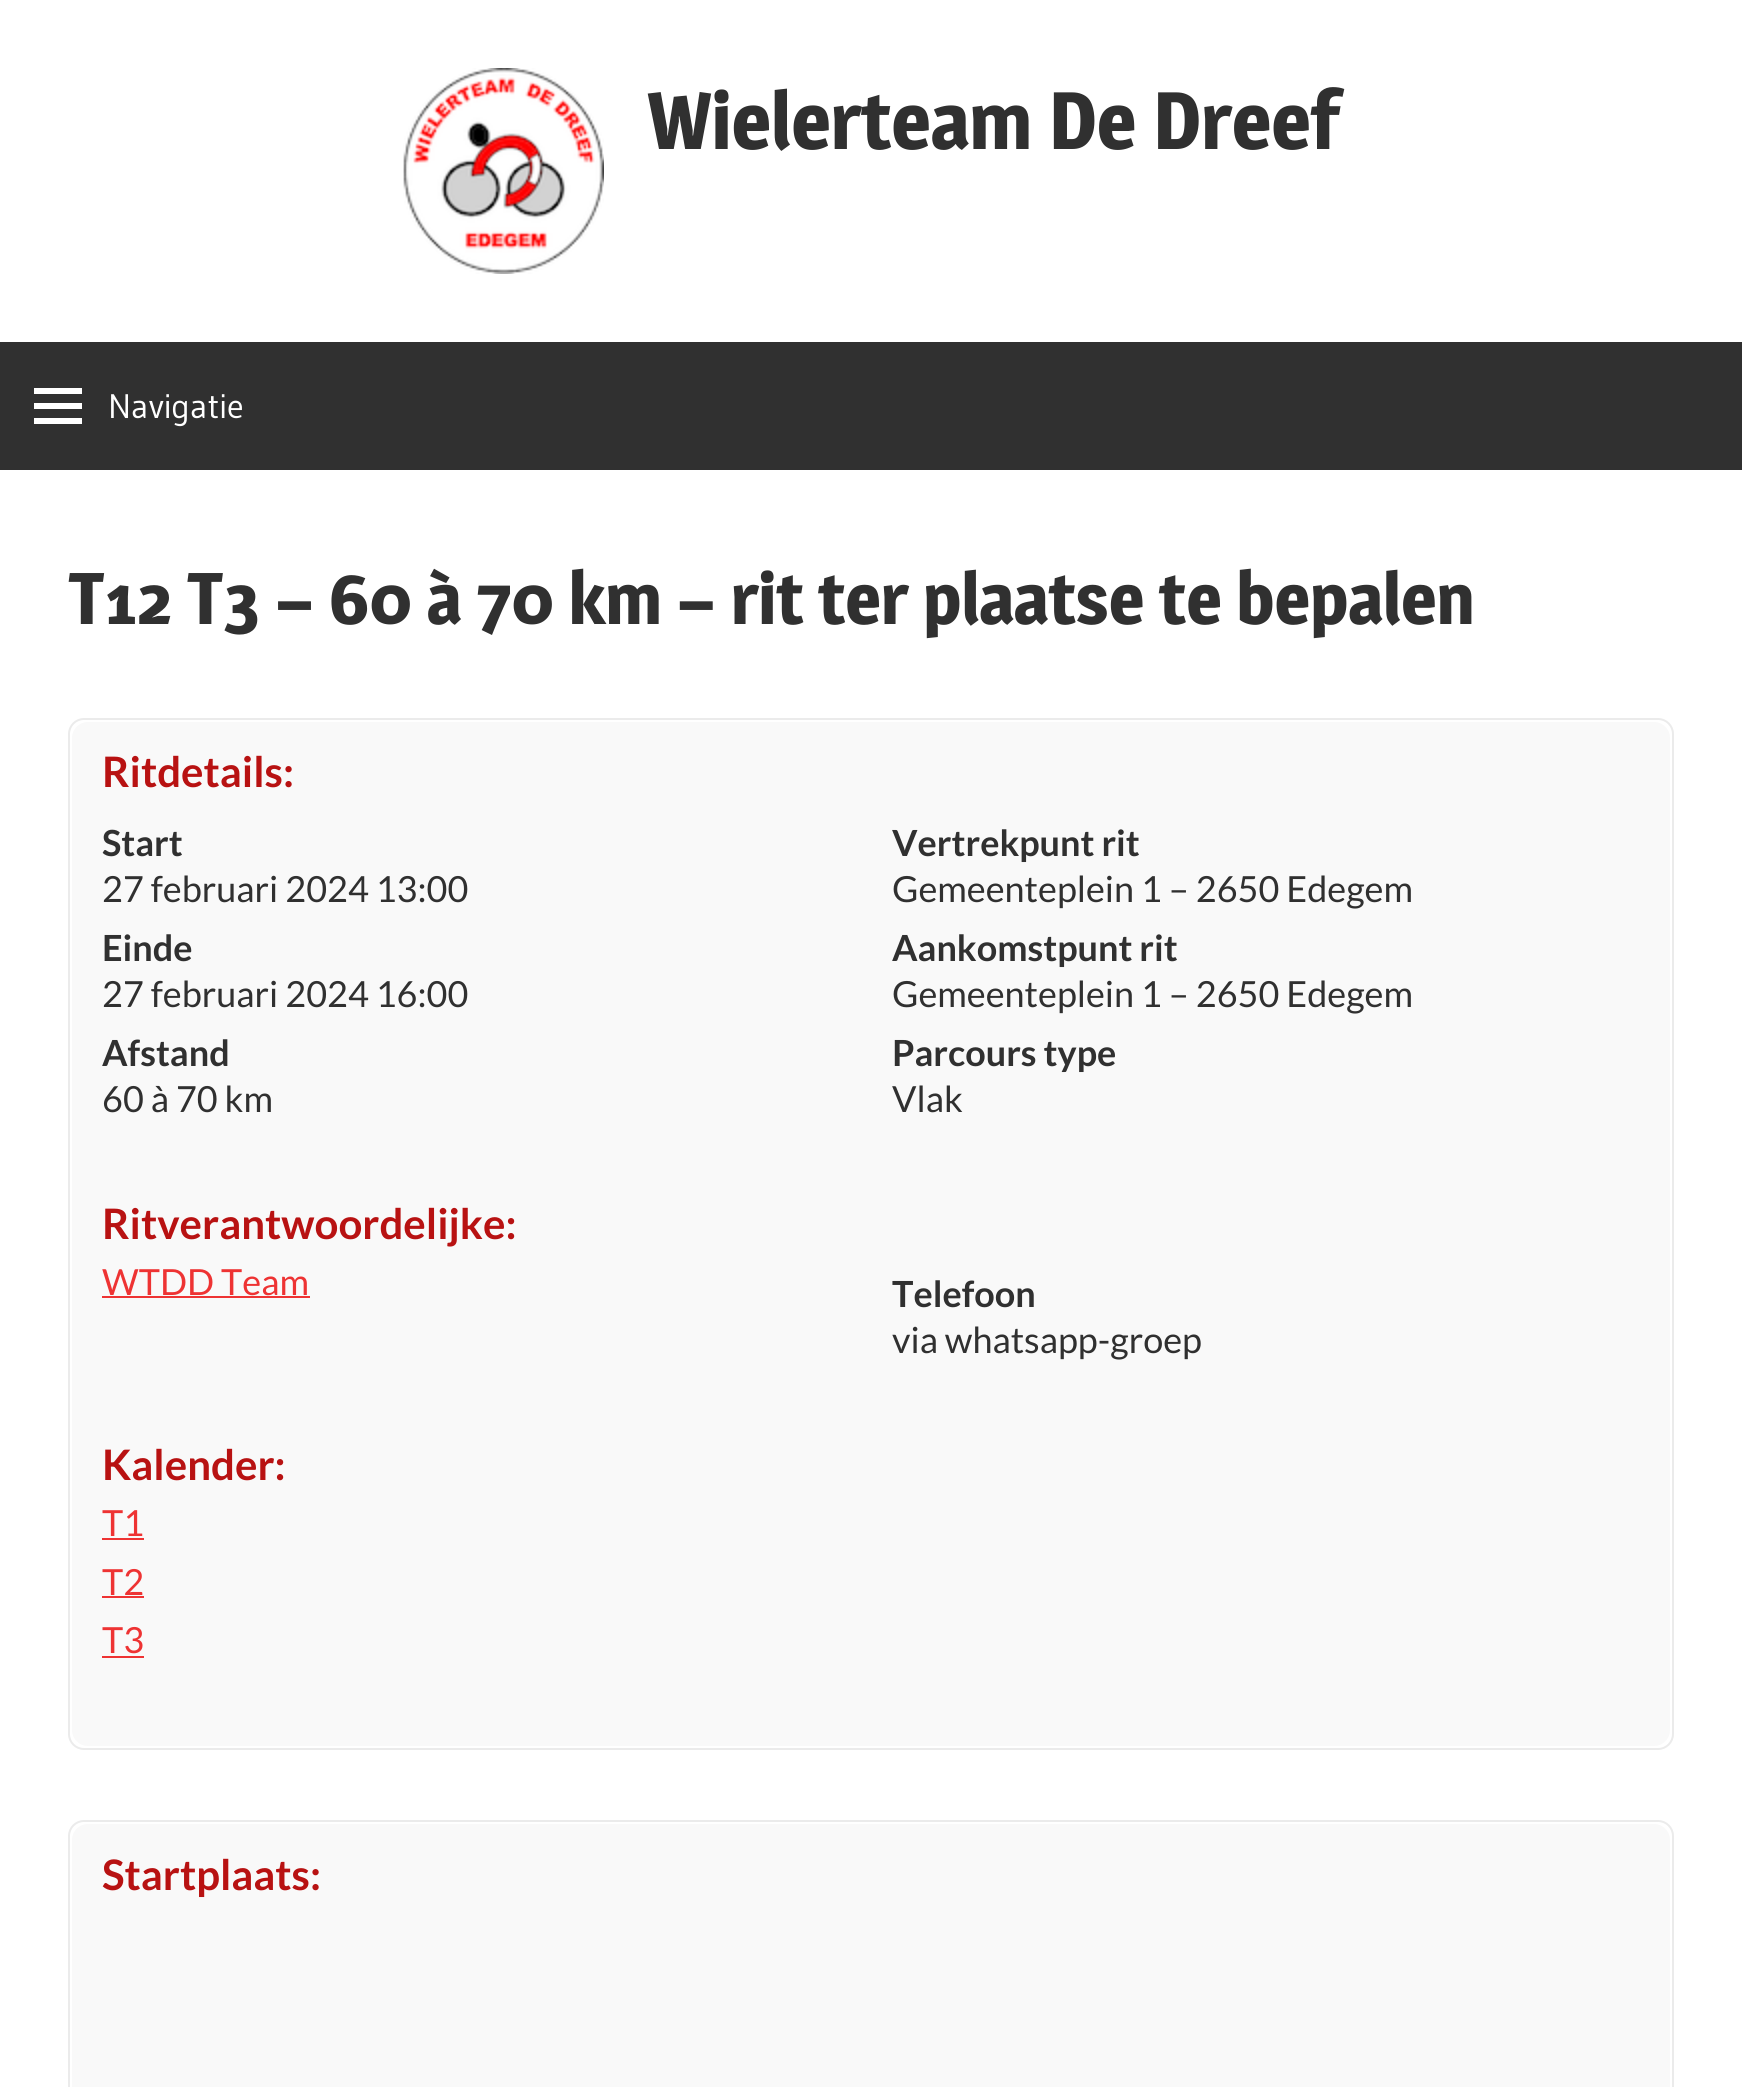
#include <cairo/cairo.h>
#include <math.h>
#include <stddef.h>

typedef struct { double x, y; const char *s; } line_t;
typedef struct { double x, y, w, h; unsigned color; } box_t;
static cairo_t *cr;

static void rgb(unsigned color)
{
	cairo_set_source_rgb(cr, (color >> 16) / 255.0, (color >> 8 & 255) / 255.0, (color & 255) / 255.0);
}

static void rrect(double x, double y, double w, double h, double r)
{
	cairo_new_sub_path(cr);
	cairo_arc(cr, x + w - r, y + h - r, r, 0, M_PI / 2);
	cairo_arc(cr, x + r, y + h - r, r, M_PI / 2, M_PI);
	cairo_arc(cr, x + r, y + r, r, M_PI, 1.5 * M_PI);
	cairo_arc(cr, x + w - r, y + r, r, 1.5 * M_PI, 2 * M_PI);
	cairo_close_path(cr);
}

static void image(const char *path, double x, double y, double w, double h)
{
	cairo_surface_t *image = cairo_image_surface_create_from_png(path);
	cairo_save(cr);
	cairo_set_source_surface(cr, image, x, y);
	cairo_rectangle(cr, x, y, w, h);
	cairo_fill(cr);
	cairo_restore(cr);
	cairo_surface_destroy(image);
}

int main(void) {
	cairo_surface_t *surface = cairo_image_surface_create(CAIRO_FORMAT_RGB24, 1742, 2087);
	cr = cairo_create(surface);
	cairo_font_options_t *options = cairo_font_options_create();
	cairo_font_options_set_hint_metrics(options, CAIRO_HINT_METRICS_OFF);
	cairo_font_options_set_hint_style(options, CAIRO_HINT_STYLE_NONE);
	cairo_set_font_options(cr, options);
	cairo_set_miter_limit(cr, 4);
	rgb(0xffffff);
	cairo_paint(cr);
	image("img/1.png", 403, 68, 201, 206);
	rgb(0x303030);
	cairo_rectangle(cr, 0, 342, 1742, 128);
	cairo_fill(cr);
	image("img/2.png", 34, 388, 48, 36);
	rrect(69, 719, 1604, 1030, 15);
	rgb(0xebebeb);
	cairo_stroke(cr);
	rgb(0xf9f9f9);
	rrect(72, 722, 1598, 1024, 16);
	cairo_fill(cr);
	{
		static const box_t items[] = {
			{102, 1296, 208, 2, 0xee3333},
			{102, 1538, 42, 2, 0xee3333},
			{102, 1596, 42, 2, 0xee3333},
			{102, 1656, 42, 2, 0xee3333},
		};
		for (size_t i = 0; i < sizeof items / sizeof *items; i++) {
			rgb(items[i].color);
			cairo_rectangle(cr, items[i].x, items[i].y, items[i].w, items[i].h);
			cairo_fill(cr);
		}
	}
	rrect(69, 1821, 1604, 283, 15);
	rgb(0xebebeb);
	cairo_stroke(cr);
	rgb(0xf9f9f9);
	rrect(72, 1824, 1598, 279, 16);
	cairo_fill(cr);
	cairo_select_font_face(cr, "Magra", CAIRO_FONT_SLANT_NORMAL, CAIRO_FONT_WEIGHT_BOLD);
	cairo_set_font_size(cr, 80);
	rgb(0x303030);
	cairo_move_to(cr, 647, 149);
	cairo_show_text(cr, "Wielerteam De Dreef");
	cairo_select_font_face(cr, "Gudea", CAIRO_FONT_SLANT_NORMAL, CAIRO_FONT_WEIGHT_NORMAL);
	cairo_set_font_size(cr, 34);
	rgb(0xffffff);
	cairo_move_to(cr, 108, 418);
	cairo_show_text(cr, "Navigatie");
	cairo_select_font_face(cr, "Magra", CAIRO_FONT_SLANT_NORMAL, CAIRO_FONT_WEIGHT_BOLD);
	cairo_set_font_size(cr, 72);
	rgb(0x303030);
	cairo_move_to(cr, 68, 624);
	cairo_show_text(cr, "T12 T3 – 60 à 70 km – rit ter plaatse te bepalen");
	cairo_select_font_face(cr, "Lato", CAIRO_FONT_SLANT_NORMAL, CAIRO_FONT_WEIGHT_BOLD);
	cairo_set_font_size(cr, 42);
	rgb(0xb81212);
	cairo_move_to(cr, 102, 787);
	cairo_show_text(cr, "Ritdetails:");
	cairo_set_font_size(cr, 36);
	rgb(0x303030);
	cairo_move_to(cr, 102, 856);
	cairo_show_text(cr, "Start");
	cairo_select_font_face(cr, "Lato", CAIRO_FONT_SLANT_NORMAL, CAIRO_FONT_WEIGHT_NORMAL);
	cairo_move_to(cr, 102, 902);
	cairo_show_text(cr, "27 februari 2024 13:00");
	cairo_select_font_face(cr, "Lato", CAIRO_FONT_SLANT_NORMAL, CAIRO_FONT_WEIGHT_BOLD);
	cairo_move_to(cr, 892, 856);
	cairo_show_text(cr, "Vertrekpunt rit");
	cairo_select_font_face(cr, "Lato", CAIRO_FONT_SLANT_NORMAL, CAIRO_FONT_WEIGHT_NORMAL);
	cairo_move_to(cr, 892, 902);
	cairo_show_text(cr, "Gemeenteplein 1 – 2650 Edegem");
	cairo_select_font_face(cr, "Lato", CAIRO_FONT_SLANT_NORMAL, CAIRO_FONT_WEIGHT_BOLD);
	cairo_move_to(cr, 102, 961);
	cairo_show_text(cr, "Einde");
	cairo_select_font_face(cr, "Lato", CAIRO_FONT_SLANT_NORMAL, CAIRO_FONT_WEIGHT_NORMAL);
	cairo_move_to(cr, 102, 1007);
	cairo_show_text(cr, "27 februari 2024 16:00");
	cairo_select_font_face(cr, "Lato", CAIRO_FONT_SLANT_NORMAL, CAIRO_FONT_WEIGHT_BOLD);
	cairo_move_to(cr, 892, 961);
	cairo_show_text(cr, "Aankomstpunt rit");
	cairo_select_font_face(cr, "Lato", CAIRO_FONT_SLANT_NORMAL, CAIRO_FONT_WEIGHT_NORMAL);
	cairo_move_to(cr, 892, 1007);
	cairo_show_text(cr, "Gemeenteplein 1 – 2650 Edegem");
	cairo_select_font_face(cr, "Lato", CAIRO_FONT_SLANT_NORMAL, CAIRO_FONT_WEIGHT_BOLD);
	cairo_move_to(cr, 102, 1066);
	cairo_show_text(cr, "Afstand");
	cairo_select_font_face(cr, "Lato", CAIRO_FONT_SLANT_NORMAL, CAIRO_FONT_WEIGHT_NORMAL);
	cairo_move_to(cr, 102, 1112);
	cairo_show_text(cr, "60 à 70 km");
	cairo_select_font_face(cr, "Lato", CAIRO_FONT_SLANT_NORMAL, CAIRO_FONT_WEIGHT_BOLD);
	cairo_move_to(cr, 892, 1066);
	cairo_show_text(cr, "Parcours type");
	cairo_select_font_face(cr, "Lato", CAIRO_FONT_SLANT_NORMAL, CAIRO_FONT_WEIGHT_NORMAL);
	cairo_move_to(cr, 892, 1112);
	cairo_show_text(cr, "Vlak");
	cairo_select_font_face(cr, "Lato", CAIRO_FONT_SLANT_NORMAL, CAIRO_FONT_WEIGHT_BOLD);
	cairo_set_font_size(cr, 42);
	rgb(0xb81212);
	cairo_move_to(cr, 102, 1239);
	cairo_show_text(cr, "Ritverantwoordelijke:");
	cairo_select_font_face(cr, "Lato", CAIRO_FONT_SLANT_NORMAL, CAIRO_FONT_WEIGHT_NORMAL);
	cairo_set_font_size(cr, 36);
	rgb(0xee3333);
	cairo_move_to(cr, 102, 1295);
	cairo_show_text(cr, "WTDD Team");
	cairo_select_font_face(cr, "Lato", CAIRO_FONT_SLANT_NORMAL, CAIRO_FONT_WEIGHT_BOLD);
	rgb(0x303030);
	cairo_move_to(cr, 892, 1307);
	cairo_show_text(cr, "Telefoon");
	cairo_select_font_face(cr, "Lato", CAIRO_FONT_SLANT_NORMAL, CAIRO_FONT_WEIGHT_NORMAL);
	cairo_move_to(cr, 892, 1353);
	cairo_show_text(cr, "via whatsapp-groep");
	cairo_select_font_face(cr, "Lato", CAIRO_FONT_SLANT_NORMAL, CAIRO_FONT_WEIGHT_BOLD);
	cairo_set_font_size(cr, 42);
	rgb(0xb81212);
	cairo_move_to(cr, 102, 1480);
	cairo_show_text(cr, "Kalender:");
	cairo_select_font_face(cr, "Lato", CAIRO_FONT_SLANT_NORMAL, CAIRO_FONT_WEIGHT_NORMAL);
	cairo_set_font_size(cr, 36);
	rgb(0xee3333);
	{
		static const line_t items[] = {
			{102, 1536, "T1"},
			{102, 1595, "T2"},
			{102, 1653, "T3"},
		};
		for (size_t i = 0; i < sizeof items / sizeof *items; i++) {
			cairo_move_to(cr, items[i].x, items[i].y);
			cairo_show_text(cr, items[i].s);
		}
	}
	cairo_select_font_face(cr, "Lato", CAIRO_FONT_SLANT_NORMAL, CAIRO_FONT_WEIGHT_BOLD);
	cairo_set_font_size(cr, 42);
	rgb(0xb81212);
	cairo_move_to(cr, 102, 1890);
	cairo_show_text(cr, "Startplaats:");
	cairo_surface_write_to_png(surface, "page.png");
	cairo_font_options_destroy(options);
	cairo_destroy(cr);
	cairo_surface_destroy(surface);
	return 0;
}
